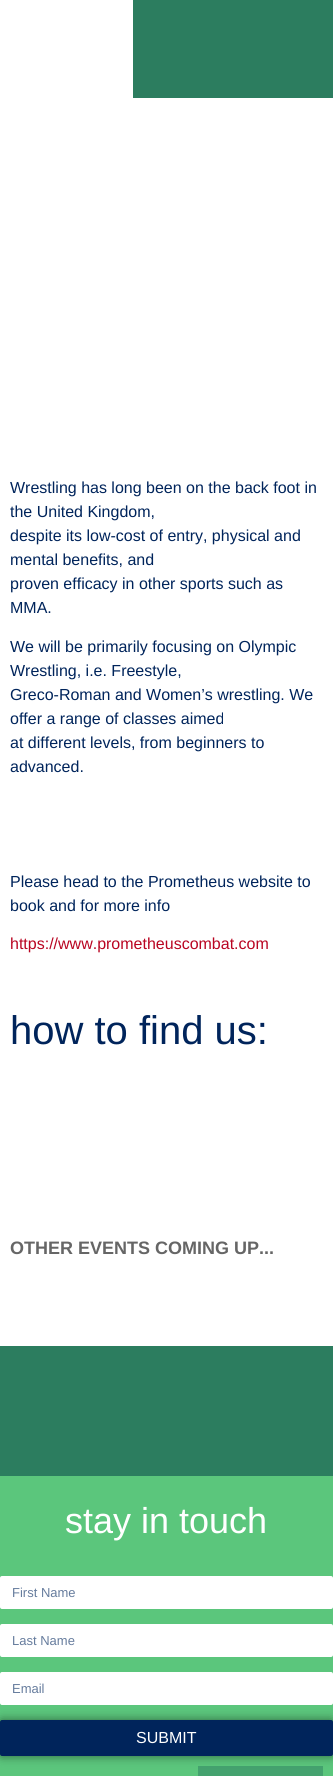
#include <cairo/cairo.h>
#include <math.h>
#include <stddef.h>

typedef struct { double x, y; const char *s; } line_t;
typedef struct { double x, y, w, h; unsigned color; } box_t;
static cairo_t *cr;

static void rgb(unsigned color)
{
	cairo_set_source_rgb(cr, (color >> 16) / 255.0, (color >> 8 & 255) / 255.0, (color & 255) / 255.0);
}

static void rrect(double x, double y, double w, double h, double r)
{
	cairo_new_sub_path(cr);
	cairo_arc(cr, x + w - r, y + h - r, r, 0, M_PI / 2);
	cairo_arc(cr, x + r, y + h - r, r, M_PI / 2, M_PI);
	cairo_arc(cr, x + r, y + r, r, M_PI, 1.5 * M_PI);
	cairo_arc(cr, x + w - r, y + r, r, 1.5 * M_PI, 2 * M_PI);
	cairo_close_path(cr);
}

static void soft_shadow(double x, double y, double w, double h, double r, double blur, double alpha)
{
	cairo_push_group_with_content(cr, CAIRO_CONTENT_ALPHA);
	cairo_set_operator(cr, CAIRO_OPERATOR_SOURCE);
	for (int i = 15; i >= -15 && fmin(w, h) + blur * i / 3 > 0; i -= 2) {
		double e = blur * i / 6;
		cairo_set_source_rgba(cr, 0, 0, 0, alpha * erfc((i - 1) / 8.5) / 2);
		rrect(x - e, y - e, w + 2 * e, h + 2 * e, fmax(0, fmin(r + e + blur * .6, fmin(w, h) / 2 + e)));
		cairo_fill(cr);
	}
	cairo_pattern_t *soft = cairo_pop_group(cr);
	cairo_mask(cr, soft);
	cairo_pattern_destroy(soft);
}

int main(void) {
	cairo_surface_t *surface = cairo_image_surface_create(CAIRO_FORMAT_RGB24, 333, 1776);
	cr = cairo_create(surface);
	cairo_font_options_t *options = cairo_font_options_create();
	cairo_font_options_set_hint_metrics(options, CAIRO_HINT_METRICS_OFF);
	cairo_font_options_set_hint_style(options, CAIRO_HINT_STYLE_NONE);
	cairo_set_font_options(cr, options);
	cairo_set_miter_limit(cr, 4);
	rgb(0xffffff);
	cairo_paint(cr);
	{
		static const box_t items[] = {
			{133, 0, 200, 98, 0x2c7d5f},
			{0, 1346, 333, 130, 0x2c7d5f},
			{0, 1476, 333, 300, 0x5bc67c},
			{198, 1766, 125, 10, 0x44a26e},
		};
		for (size_t i = 0; i < sizeof items / sizeof *items; i++) {
			rgb(items[i].color);
			cairo_rectangle(cr, items[i].x, items[i].y, items[i].w, items[i].h);
			cairo_fill(cr);
		}
	}
	rgb(0xffffff);
	rrect(0, 1576, 333, 33, 2);
	cairo_fill(cr);
	rrect(0, 1624, 333, 33, 2);
	cairo_fill(cr);
	rrect(0, 1672, 333, 33, 2);
	cairo_fill(cr);
	rgb(0x000000);
	soft_shadow(0, 1720, 333, 36, 2, 5, 0.5);
	rgb(0x00245b);
	rrect(0, 1720, 333, 36, 2);
	cairo_fill(cr);
	cairo_select_font_face(cr, "Liberation Sans", CAIRO_FONT_SLANT_NORMAL, CAIRO_FONT_WEIGHT_NORMAL);
	cairo_set_font_size(cr, 16);
	{
		static const line_t items[] = {
			{10, 493, "Wrestling has long been on the back foot in"},
			{10, 517, "the United Kingdom,"},
			{10, 541, "despite its low-cost of entry, physical and"},
			{10, 565, "mental benefits, and"},
			{10, 589, "proven efficacy in other sports such as"},
			{10, 613, "MMA."},
			{10, 652, "We will be primarily focusing on Olympic"},
			{10, 676, "Wrestling, i.e. Freestyle,"},
			{10, 700, "Greco-Roman and Women’s wrestling. We"},
			{10, 724, "offer a range of classes aimed"},
			{10, 748, "at different levels, from beginners to"},
			{10, 772, "advanced."},
			{10, 887, "Please head to the Prometheus website to"},
			{10, 911, "book and for more info"},
		};
		for (size_t i = 0; i < sizeof items / sizeof *items; i++) {
			cairo_move_to(cr, items[i].x, items[i].y);
			cairo_show_text(cr, items[i].s);
		}
	}
	rgb(0xb90522);
	cairo_move_to(cr, 10, 949);
	cairo_show_text(cr, "https://www.prometheuscombat.com");
	cairo_set_font_size(cr, 40);
	rgb(0x00245b);
	cairo_move_to(cr, 10, 1044);
	cairo_show_text(cr, "how to find us:");
	cairo_select_font_face(cr, "Liberation Sans", CAIRO_FONT_SLANT_NORMAL, CAIRO_FONT_WEIGHT_BOLD);
	cairo_set_font_size(cr, 18);
	rgb(0x666666);
	cairo_move_to(cr, 10, 1254);
	cairo_show_text(cr, "OTHER EVENTS COMING UP...");
	cairo_select_font_face(cr, "Liberation Sans", CAIRO_FONT_SLANT_NORMAL, CAIRO_FONT_WEIGHT_NORMAL);
	cairo_set_font_size(cr, 36);
	rgb(0xffffff);
	cairo_move_to(cr, 65, 1533);
	cairo_show_text(cr, "stay in touch");
	cairo_set_font_size(cr, 13);
	rgb(0x667c9d);
	{
		static const line_t items[] = {
			{12, 1597, "First Name"},
			{12, 1645, "Last Name"},
			{12, 1693, "Email"},
		};
		for (size_t i = 0; i < sizeof items / sizeof *items; i++) {
			cairo_move_to(cr, items[i].x, items[i].y);
			cairo_show_text(cr, items[i].s);
		}
	}
	cairo_set_font_size(cr, 16);
	rgb(0xffffff);
	cairo_move_to(cr, 136, 1743);
	cairo_show_text(cr, "SUBMIT");
	cairo_surface_write_to_png(surface, "page.png");
	cairo_font_options_destroy(options);
	cairo_destroy(cr);
	cairo_surface_destroy(surface);
	return 0;
}
